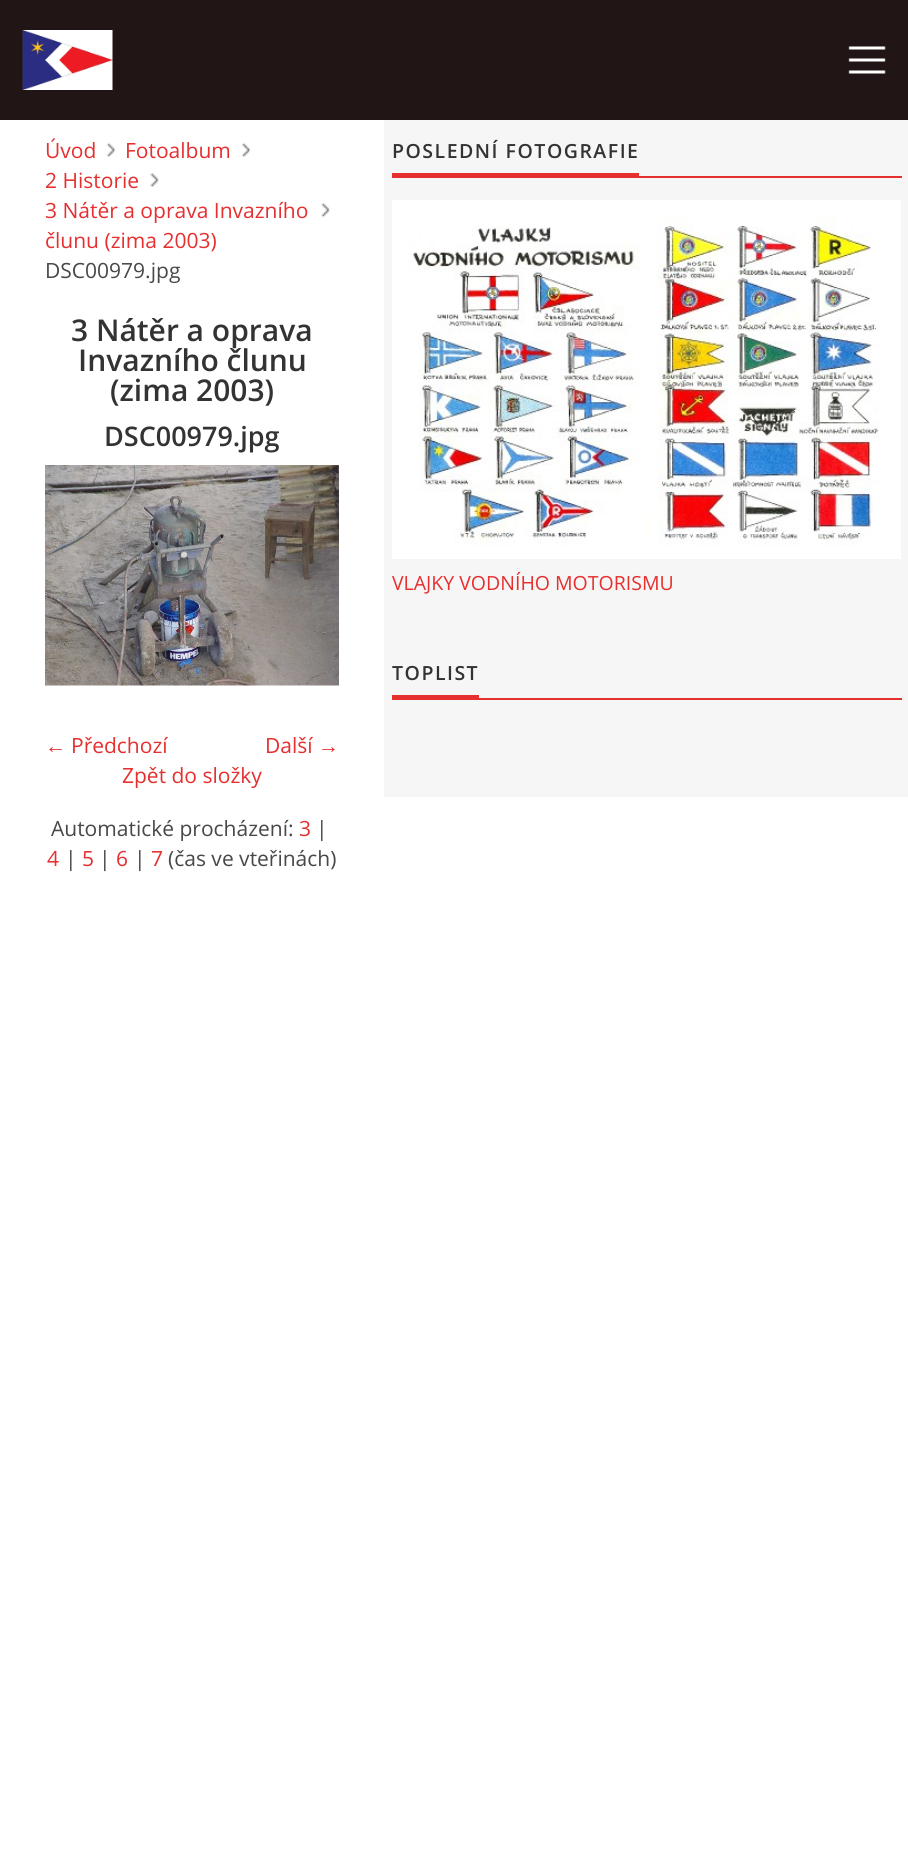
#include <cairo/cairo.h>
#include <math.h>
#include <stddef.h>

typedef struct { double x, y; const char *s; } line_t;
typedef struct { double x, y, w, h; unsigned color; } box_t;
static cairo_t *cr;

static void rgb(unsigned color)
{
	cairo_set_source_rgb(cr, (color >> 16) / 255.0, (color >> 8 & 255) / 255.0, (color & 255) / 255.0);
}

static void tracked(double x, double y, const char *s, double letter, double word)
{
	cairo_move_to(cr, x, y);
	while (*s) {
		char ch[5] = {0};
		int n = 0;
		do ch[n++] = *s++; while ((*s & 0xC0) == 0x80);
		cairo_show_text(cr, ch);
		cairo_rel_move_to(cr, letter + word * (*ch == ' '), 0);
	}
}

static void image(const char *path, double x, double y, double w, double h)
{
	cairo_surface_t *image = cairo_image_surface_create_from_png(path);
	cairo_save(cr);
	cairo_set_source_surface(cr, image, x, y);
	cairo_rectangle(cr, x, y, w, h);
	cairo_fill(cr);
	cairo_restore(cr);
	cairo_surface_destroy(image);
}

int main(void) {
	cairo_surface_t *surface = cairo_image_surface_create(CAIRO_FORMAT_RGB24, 908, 1865);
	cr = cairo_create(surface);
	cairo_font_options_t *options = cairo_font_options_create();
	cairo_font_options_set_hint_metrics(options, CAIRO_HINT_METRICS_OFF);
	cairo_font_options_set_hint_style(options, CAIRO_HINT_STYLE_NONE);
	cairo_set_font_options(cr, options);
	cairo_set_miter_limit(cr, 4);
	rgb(0xffffff);
	cairo_paint(cr);
	rgb(0x211515);
	cairo_rectangle(cr, 0, 0, 908, 120);
	cairo_fill(cr);
	image("img/1.png", 22, 30, 91, 60);
	image("img/2.png", 848, 46, 38, 28);
	image("img/3.png", 106, 142, 10, 16);
	image("img/3.png", 241, 142, 10, 16);
	image("img/4.png", 150, 172, 9, 16);
	image("img/5.png", 321, 202, 9, 16);
	image("img/6.png", 45, 465, 294, 221);
	{
		static const box_t items[] = {
			{384, 120, 524, 677, 0xf6f6f6},
			{392, 173, 247, 3, 0xe62f2f},
			{392, 176, 510, 2, 0xe62f2f},
		};
		for (size_t i = 0; i < sizeof items / sizeof *items; i++) {
			rgb(items[i].color);
			cairo_rectangle(cr, items[i].x, items[i].y, items[i].w, items[i].h);
			cairo_fill(cr);
		}
	}
	image("img/7.png", 392, 200, 509, 359);
	cairo_rectangle(cr, 392, 695, 87, 3);
	cairo_fill(cr);
	cairo_rectangle(cr, 392, 698, 510, 2);
	cairo_fill(cr);
	cairo_select_font_face(cr, "Open Sans", CAIRO_FONT_SLANT_NORMAL, CAIRO_FONT_WEIGHT_NORMAL);
	cairo_set_font_size(cr, 21);
	{
		static const line_t items[] = {
			{45, 158, "Úvod"},
			{125, 158, "Fotoalbum"},
			{45, 188, "2 Historie"},
			{45, 218, "3 Nátěr a oprava Invazního"},
			{45, 248, "člunu (zima 2003)"},
		};
		for (size_t i = 0; i < sizeof items / sizeof *items; i++) {
			cairo_move_to(cr, items[i].x, items[i].y);
			cairo_show_text(cr, items[i].s);
		}
	}
	rgb(0x484848);
	cairo_move_to(cr, 45, 278);
	cairo_show_text(cr, "DSC00979.jpg");
	cairo_select_font_face(cr, "Open Sans SemiBold", CAIRO_FONT_SLANT_NORMAL, CAIRO_FONT_WEIGHT_NORMAL);
	cairo_set_font_size(cr, 30);
	rgb(0x333333);
	{
		static const line_t items[] = {
			{71, 341, "3 Nátěr a oprava"},
			{78, 371, "Invazního člunu"},
			{110, 401, "(zima 2003)"},
		};
		for (size_t i = 0; i < sizeof items / sizeof *items; i++) {
			cairo_move_to(cr, items[i].x, items[i].y);
			cairo_show_text(cr, items[i].s);
		}
	}
	cairo_set_font_size(cr, 27);
	cairo_move_to(cr, 104, 446);
	cairo_show_text(cr, "DSC00979.jpg");
	cairo_select_font_face(cr, "Liberation Serif", CAIRO_FONT_SLANT_NORMAL, CAIRO_FONT_WEIGHT_NORMAL);
	cairo_set_font_size(cr, 21);
	rgb(0xe62f2f);
	cairo_move_to(cr, 45, 753);
	cairo_show_text(cr, "←");
	cairo_select_font_face(cr, "Open Sans", CAIRO_FONT_SLANT_NORMAL, CAIRO_FONT_WEIGHT_NORMAL);
	cairo_move_to(cr, 71, 753);
	cairo_show_text(cr, "Předchozí");
	cairo_move_to(cr, 265, 753);
	cairo_show_text(cr, "Další");
	cairo_select_font_face(cr, "Liberation Serif", CAIRO_FONT_SLANT_NORMAL, CAIRO_FONT_WEIGHT_NORMAL);
	cairo_move_to(cr, 318, 753);
	cairo_show_text(cr, "→");
	cairo_select_font_face(cr, "Open Sans", CAIRO_FONT_SLANT_NORMAL, CAIRO_FONT_WEIGHT_NORMAL);
	cairo_move_to(cr, 122, 783);
	cairo_show_text(cr, "Zpět do složky");
	rgb(0x484848);
	cairo_move_to(cr, 51, 836);
	cairo_show_text(cr, "Automatické procházení:");
	rgb(0xe62f2f);
	cairo_move_to(cr, 299, 836);
	cairo_show_text(cr, "3");
	rgb(0x484848);
	cairo_move_to(cr, 316, 836);
	cairo_show_text(cr, "|");
	rgb(0xe62f2f);
	cairo_move_to(cr, 47, 866);
	cairo_show_text(cr, "4");
	rgb(0x484848);
	cairo_move_to(cr, 65, 866);
	cairo_show_text(cr, "|");
	rgb(0xe62f2f);
	cairo_move_to(cr, 82, 866);
	cairo_show_text(cr, "5");
	rgb(0x484848);
	cairo_move_to(cr, 99, 866);
	cairo_show_text(cr, "|");
	rgb(0xe62f2f);
	cairo_move_to(cr, 116, 866);
	cairo_show_text(cr, "6");
	rgb(0x484848);
	cairo_move_to(cr, 134, 866);
	cairo_show_text(cr, "|");
	rgb(0xe62f2f);
	cairo_move_to(cr, 151, 866);
	cairo_show_text(cr, "7");
	rgb(0x484848);
	cairo_move_to(cr, 168, 866);
	cairo_show_text(cr, "(čas ve vteřinách)");
	cairo_select_font_face(cr, "Open Sans SemiBold", CAIRO_FONT_SLANT_NORMAL, CAIRO_FONT_WEIGHT_NORMAL);
	cairo_set_font_size(cr, 19.5);
	rgb(0x333333);
	tracked(392, 158, "POSLEDNÍ FOTOGRAFIE", 1.5, 0);
	cairo_select_font_face(cr, "Open Sans", CAIRO_FONT_SLANT_NORMAL, CAIRO_FONT_WEIGHT_NORMAL);
	rgb(0xe62f2f);
	cairo_move_to(cr, 392, 590);
	cairo_show_text(cr, "VLAJKY VODNÍHO MOTORISMU");
	cairo_select_font_face(cr, "Open Sans SemiBold", CAIRO_FONT_SLANT_NORMAL, CAIRO_FONT_WEIGHT_NORMAL);
	rgb(0x333333);
	tracked(392, 680, "TOPLIST", 1.5, 0);
	cairo_surface_write_to_png(surface, "page.png");
	cairo_font_options_destroy(options);
	cairo_destroy(cr);
	cairo_surface_destroy(surface);
	return 0;
}
